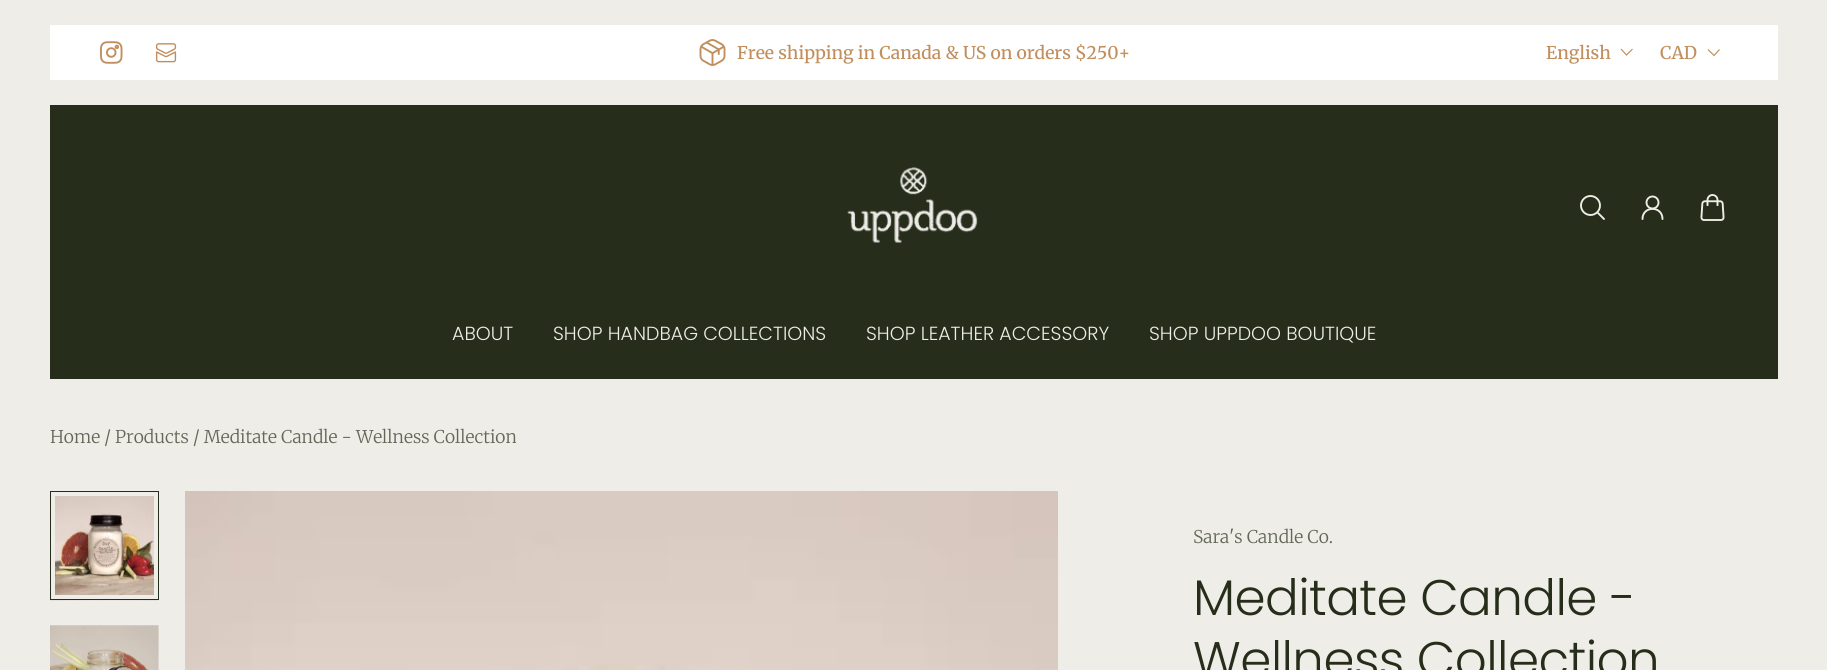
#include <cairo/cairo.h>
#include <math.h>
#include <stddef.h>

typedef struct { double x, y; const char *s; } line_t;
static cairo_t *cr;

static void rgb(unsigned color)
{
	cairo_set_source_rgb(cr, (color >> 16) / 255.0, (color >> 8 & 255) / 255.0, (color & 255) / 255.0);
}

static void tracked(double x, double y, const char *s, double letter, double word)
{
	cairo_move_to(cr, x, y);
	while (*s) {
		char ch[5] = {0};
		int n = 0;
		do ch[n++] = *s++; while ((*s & 0xC0) == 0x80);
		cairo_show_text(cr, ch);
		cairo_rel_move_to(cr, letter + word * (*ch == ' '), 0);
	}
}

static void image(const char *path, double x, double y, double w, double h)
{
	cairo_surface_t *image = cairo_image_surface_create_from_png(path);
	cairo_save(cr);
	cairo_set_source_surface(cr, image, x, y);
	cairo_rectangle(cr, x, y, w, h);
	cairo_fill(cr);
	cairo_restore(cr);
	cairo_surface_destroy(image);
}

int main(void) {
	cairo_surface_t *surface = cairo_image_surface_create(CAIRO_FORMAT_RGB24, 1827, 670);
	cr = cairo_create(surface);
	cairo_font_options_t *options = cairo_font_options_create();
	cairo_font_options_set_hint_metrics(options, CAIRO_HINT_METRICS_OFF);
	cairo_font_options_set_hint_style(options, CAIRO_HINT_STYLE_NONE);
	cairo_set_font_options(cr, options);
	cairo_set_miter_limit(cr, 4);
	rgb(0xeeede8);
	cairo_paint(cr);
	rgb(0xffffff);
	cairo_rectangle(cr, 50, 25, 1728, 55);
	cairo_fill(cr);
	image("img/1.png", 100, 41, 23, 23);
	image("img/2.png", 155, 43, 22, 20);
	image("img/3.png", 699, 39, 27, 27);
	cairo_new_path(cr);
	cairo_move_to(cr, 1632.5, 49);
	cairo_line_to(cr, 1626.5, 55);
	cairo_line_to(cr, 1621, 49);
	rgb(0xc18f5e);
	cairo_set_line_width(cr, 1.2);
	cairo_stroke(cr);
	cairo_new_path(cr);
	cairo_move_to(cr, 1719.5, 49.5);
	cairo_line_to(cr, 1714, 55.5);
	cairo_line_to(cr, 1708, 49.5);
	cairo_stroke(cr);
	rgb(0x262d1a);
	cairo_rectangle(cr, 50, 105, 1728, 274);
	cairo_fill(cr);
	image("img/4.png", 847, 167, 131, 76);
	cairo_arc(cr, 1590.5, 205.5, 9.5, 0, 2 * M_PI);
	rgb(0xeeede8);
	cairo_set_line_width(cr, 1.9);
	cairo_stroke(cr);
	cairo_new_path(cr);
	cairo_move_to(cr, 1598, 213);
	cairo_line_to(cr, 1604, 219);
	cairo_set_line_cap(cr, CAIRO_LINE_CAP_ROUND);
	cairo_set_line_join(cr, CAIRO_LINE_JOIN_ROUND);
	cairo_stroke(cr);
	cairo_arc(cr, 1652.5, 202.5, 6, 0, 2 * M_PI);
	cairo_set_line_cap(cr, CAIRO_LINE_CAP_BUTT);
	cairo_set_line_join(cr, CAIRO_LINE_JOIN_MITER);
	cairo_stroke(cr);
	cairo_new_path(cr);
	cairo_move_to(cr, 1662.5, 219);
	cairo_curve_to(cr, 1662.5, 205.5, 1642.5, 205.5, 1642.5, 219);
	cairo_set_line_cap(cr, CAIRO_LINE_CAP_ROUND);
	cairo_set_line_join(cr, CAIRO_LINE_JOIN_ROUND);
	cairo_stroke(cr);
	image("img/5.png", 1700, 194, 25, 27);
	image("img/6.png", 50, 496, 109, 105);
	cairo_rectangle(cr, 52.5, 493.5, 104, 104);
	cairo_set_line_width(cr, 5);
	cairo_set_line_cap(cr, CAIRO_LINE_CAP_BUTT);
	cairo_set_line_join(cr, CAIRO_LINE_JOIN_MITER);
	cairo_stroke(cr);
	cairo_rectangle(cr, 50.5, 491.5, 108, 108);
	rgb(0x262d1a);
	cairo_set_line_width(cr, 1);
	cairo_stroke(cr);
	image("img/7.png", 50, 625, 109, 45);
	image("img/8.png", 185, 491, 873, 179);
	cairo_select_font_face(cr, "Merriweather Medium", CAIRO_FONT_SLANT_NORMAL, CAIRO_FONT_WEIGHT_NORMAL);
	cairo_set_font_size(cr, 17.5);
	rgb(0xc18f5e);
	{
		static const line_t items[] = {
			{737, 59, "Free shipping in Canada & US on orders $250+"},
			{1546, 59, "English"},
			{1660, 59, "CAD"},
		};
		for (size_t i = 0; i < sizeof items / sizeof *items; i++) {
			cairo_move_to(cr, items[i].x, items[i].y);
			cairo_show_text(cr, items[i].s);
		}
	}
	cairo_select_font_face(cr, "Poppins Light", CAIRO_FONT_SLANT_NORMAL, CAIRO_FONT_WEIGHT_NORMAL);
	cairo_set_font_size(cr, 19);
	rgb(0xeeede8);
	{
		static const line_t items[] = {
			{452, 340, "ABOUT"},
			{553, 340, "SHOP HANDBAG COLLECTIONS"},
			{866, 340, "SHOP LEATHER ACCESSORY"},
			{1149, 340, "SHOP UPPDOO BOUTIQUE"},
		};
		for (size_t i = 0; i < sizeof items / sizeof *items; i++) {
			cairo_move_to(cr, items[i].x, items[i].y);
			cairo_show_text(cr, items[i].s);
		}
	}
	cairo_select_font_face(cr, "Merriweather Light", CAIRO_FONT_SLANT_NORMAL, CAIRO_FONT_WEIGHT_NORMAL);
	cairo_set_font_size(cr, 17.5);
	rgb(0x626758);
	cairo_move_to(cr, 50, 443);
	cairo_show_text(cr, "Home / Products / Meditate Candle - Wellness Collection");
	cairo_move_to(cr, 1193, 543);
	cairo_show_text(cr, "Sara's Candle Co.");
	cairo_select_font_face(cr, "Poppins Light", CAIRO_FONT_SLANT_NORMAL, CAIRO_FONT_WEIGHT_NORMAL);
	cairo_set_font_size(cr, 50);
	rgb(0x262d1a);
	tracked(1193, 615, "Meditate Candle -", -0.6, 0);
	tracked(1193, 677, "Wellness Collection", -0.6, 0);
	cairo_surface_write_to_png(surface, "page.png");
	cairo_font_options_destroy(options);
	cairo_destroy(cr);
	cairo_surface_destroy(surface);
	return 0;
}
